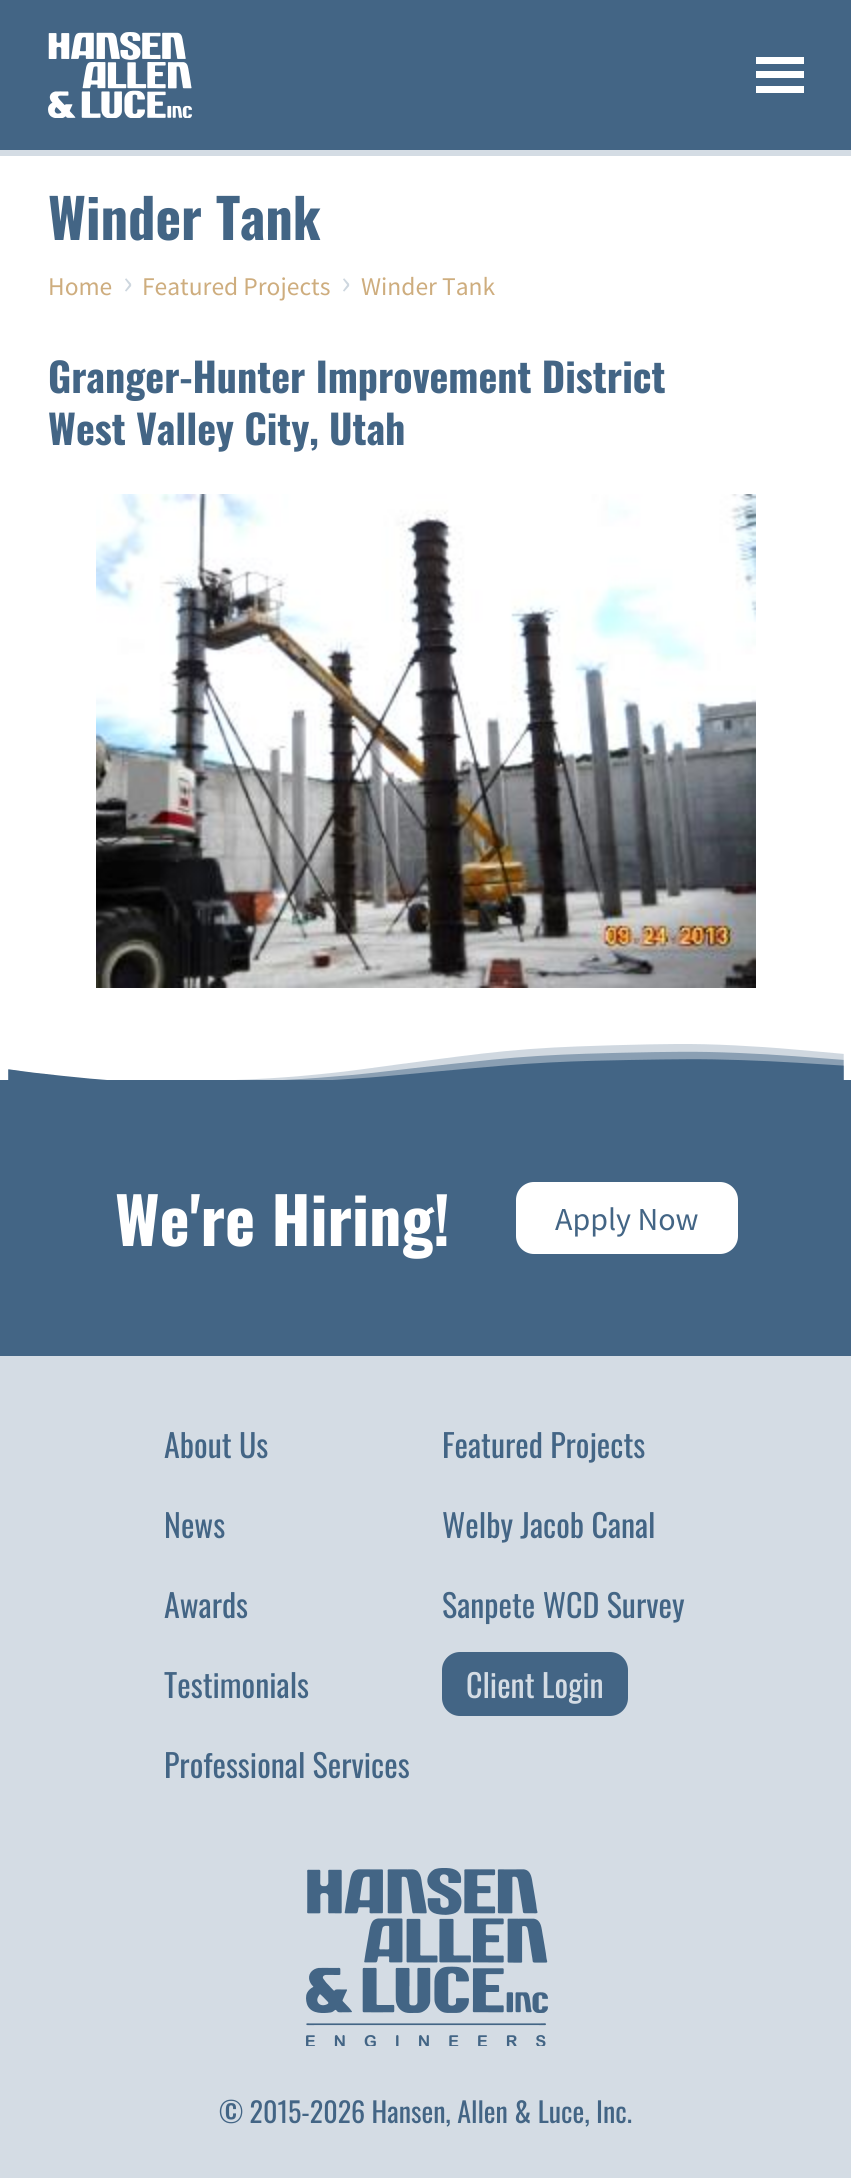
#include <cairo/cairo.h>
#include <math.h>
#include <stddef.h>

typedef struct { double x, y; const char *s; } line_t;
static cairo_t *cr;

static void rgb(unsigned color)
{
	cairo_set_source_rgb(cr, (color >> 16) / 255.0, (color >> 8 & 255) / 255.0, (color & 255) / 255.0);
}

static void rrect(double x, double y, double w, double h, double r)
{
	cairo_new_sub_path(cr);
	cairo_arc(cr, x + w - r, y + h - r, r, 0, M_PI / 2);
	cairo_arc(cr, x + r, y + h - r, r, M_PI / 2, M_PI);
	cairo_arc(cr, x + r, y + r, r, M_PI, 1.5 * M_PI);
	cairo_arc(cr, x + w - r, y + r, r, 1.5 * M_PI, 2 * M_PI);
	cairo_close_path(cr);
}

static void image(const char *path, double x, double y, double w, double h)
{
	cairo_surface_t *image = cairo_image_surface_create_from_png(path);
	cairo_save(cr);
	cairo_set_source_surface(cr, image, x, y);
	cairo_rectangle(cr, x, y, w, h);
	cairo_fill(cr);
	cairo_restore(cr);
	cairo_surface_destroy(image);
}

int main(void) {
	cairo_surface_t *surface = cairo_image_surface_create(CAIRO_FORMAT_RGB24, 851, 2178);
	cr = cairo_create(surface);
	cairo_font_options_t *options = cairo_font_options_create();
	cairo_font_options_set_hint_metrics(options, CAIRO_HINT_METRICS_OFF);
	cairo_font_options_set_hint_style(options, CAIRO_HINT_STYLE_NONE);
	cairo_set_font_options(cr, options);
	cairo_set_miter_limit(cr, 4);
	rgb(0xffffff);
	cairo_paint(cr);
	rgb(0x436585);
	cairo_rectangle(cr, 0, 0, 851, 150);
	cairo_fill(cr);
	rgb(0xd4dce4);
	cairo_rectangle(cr, 0, 150, 851, 6);
	cairo_fill(cr);
	image("img/1.png", 48, 32, 144, 86);
	rgb(0xffffff);
	cairo_new_path(cr);
	cairo_move_to(cr, 804, 64);
	cairo_line_to(cr, 804, 57);
	cairo_line_to(cr, 756, 57);
	cairo_line_to(cr, 756, 64);
	cairo_close_path(cr);
	cairo_move_to(cr, 804, 78);
	cairo_line_to(cr, 804, 71);
	cairo_line_to(cr, 756, 71);
	cairo_line_to(cr, 756, 78);
	cairo_close_path(cr);
	cairo_move_to(cr, 804, 93);
	cairo_line_to(cr, 804, 86);
	cairo_line_to(cr, 756, 86);
	cairo_line_to(cr, 756, 93);
	cairo_close_path(cr);
	cairo_fill(cr);
	image("img/2.png", 96, 494, 660, 494);
	rgb(0x436585);
	cairo_rectangle(cr, 0, 1080, 851, 276);
	cairo_fill(cr);
	image("img/3.png", 8, 1044, 836, 36);
	rgb(0xffffff);
	rrect(516, 1182, 222, 72, 18);
	cairo_fill(cr);
	rgb(0xd4dce4);
	cairo_rectangle(cr, 0, 1356, 851, 822);
	cairo_fill(cr);
	rgb(0x436585);
	rrect(442, 1652, 186, 64, 18);
	cairo_fill(cr);
	image("img/4.png", 306, 1868, 242, 178);
	cairo_select_font_face(cr, "Oswald", CAIRO_FONT_SLANT_NORMAL, CAIRO_FONT_WEIGHT_BOLD);
	cairo_set_font_size(cr, 54.5);
	cairo_move_to(cr, 48, 240);
	cairo_show_text(cr, "Winder Tank");
	cairo_select_font_face(cr, "Source Sans Pro", CAIRO_FONT_SLANT_NORMAL, CAIRO_FONT_WEIGHT_NORMAL);
	cairo_set_font_size(cr, 25.5);
	rgb(0xcead7e);
	cairo_move_to(cr, 48, 295);
	cairo_show_text(cr, "Home");
	cairo_set_font_size(cr, 36);
	rgb(0xced7df);
	cairo_move_to(cr, 123, 294);
	cairo_show_text(cr, "›");
	cairo_set_font_size(cr, 25.5);
	rgb(0xcead7e);
	cairo_move_to(cr, 142, 295);
	cairo_show_text(cr, "Featured Projects");
	cairo_set_font_size(cr, 36);
	rgb(0xced7df);
	cairo_move_to(cr, 341, 294);
	cairo_show_text(cr, "›");
	cairo_set_font_size(cr, 25.5);
	rgb(0xcead7e);
	cairo_move_to(cr, 361, 295);
	cairo_show_text(cr, "Winder Tank");
	cairo_select_font_face(cr, "Oswald", CAIRO_FONT_SLANT_NORMAL, CAIRO_FONT_WEIGHT_BOLD);
	cairo_set_font_size(cr, 40);
	rgb(0x436585);
	cairo_move_to(cr, 48, 393);
	cairo_show_text(cr, "Granger-Hunter Improvement District");
	cairo_move_to(cr, 48, 445);
	cairo_show_text(cr, "West Valley City, Utah");
	cairo_set_font_size(cr, 64);
	rgb(0xffffff);
	cairo_move_to(cr, 115, 1246);
	cairo_show_text(cr, "We're Hiring!");
	cairo_select_font_face(cr, "Source Sans Pro", CAIRO_FONT_SLANT_NORMAL, CAIRO_FONT_WEIGHT_NORMAL);
	cairo_set_font_size(cr, 32);
	rgb(0x436585);
	cairo_move_to(cr, 555, 1230);
	cairo_show_text(cr, "Apply Now");
	cairo_select_font_face(cr, "Oswald", CAIRO_FONT_SLANT_NORMAL, CAIRO_FONT_WEIGHT_NORMAL);
	{
		static const line_t items[] = {
			{164, 1458, "About Us"},
			{442, 1458, "Featured Projects"},
			{164, 1538, "News"},
			{442, 1538, "Welby Jacob Canal"},
			{164, 1618, "Awards"},
			{442, 1618, "Sanpete WCD Survey"},
			{164, 1698, "Testimonials"},
		};
		for (size_t i = 0; i < sizeof items / sizeof *items; i++) {
			cairo_move_to(cr, items[i].x, items[i].y);
			cairo_show_text(cr, items[i].s);
		}
	}
	rgb(0xd4dce4);
	cairo_move_to(cr, 466, 1698);
	cairo_show_text(cr, "Client Login");
	rgb(0x436585);
	cairo_move_to(cr, 164, 1778);
	cairo_show_text(cr, "Professional Services");
	cairo_set_font_size(cr, 28);
	cairo_move_to(cr, 219, 2123);
	cairo_show_text(cr, "© 2015-2026 Hansen, Allen & Luce, Inc.");
	cairo_surface_write_to_png(surface, "page.png");
	cairo_font_options_destroy(options);
	cairo_destroy(cr);
	cairo_surface_destroy(surface);
	return 0;
}
